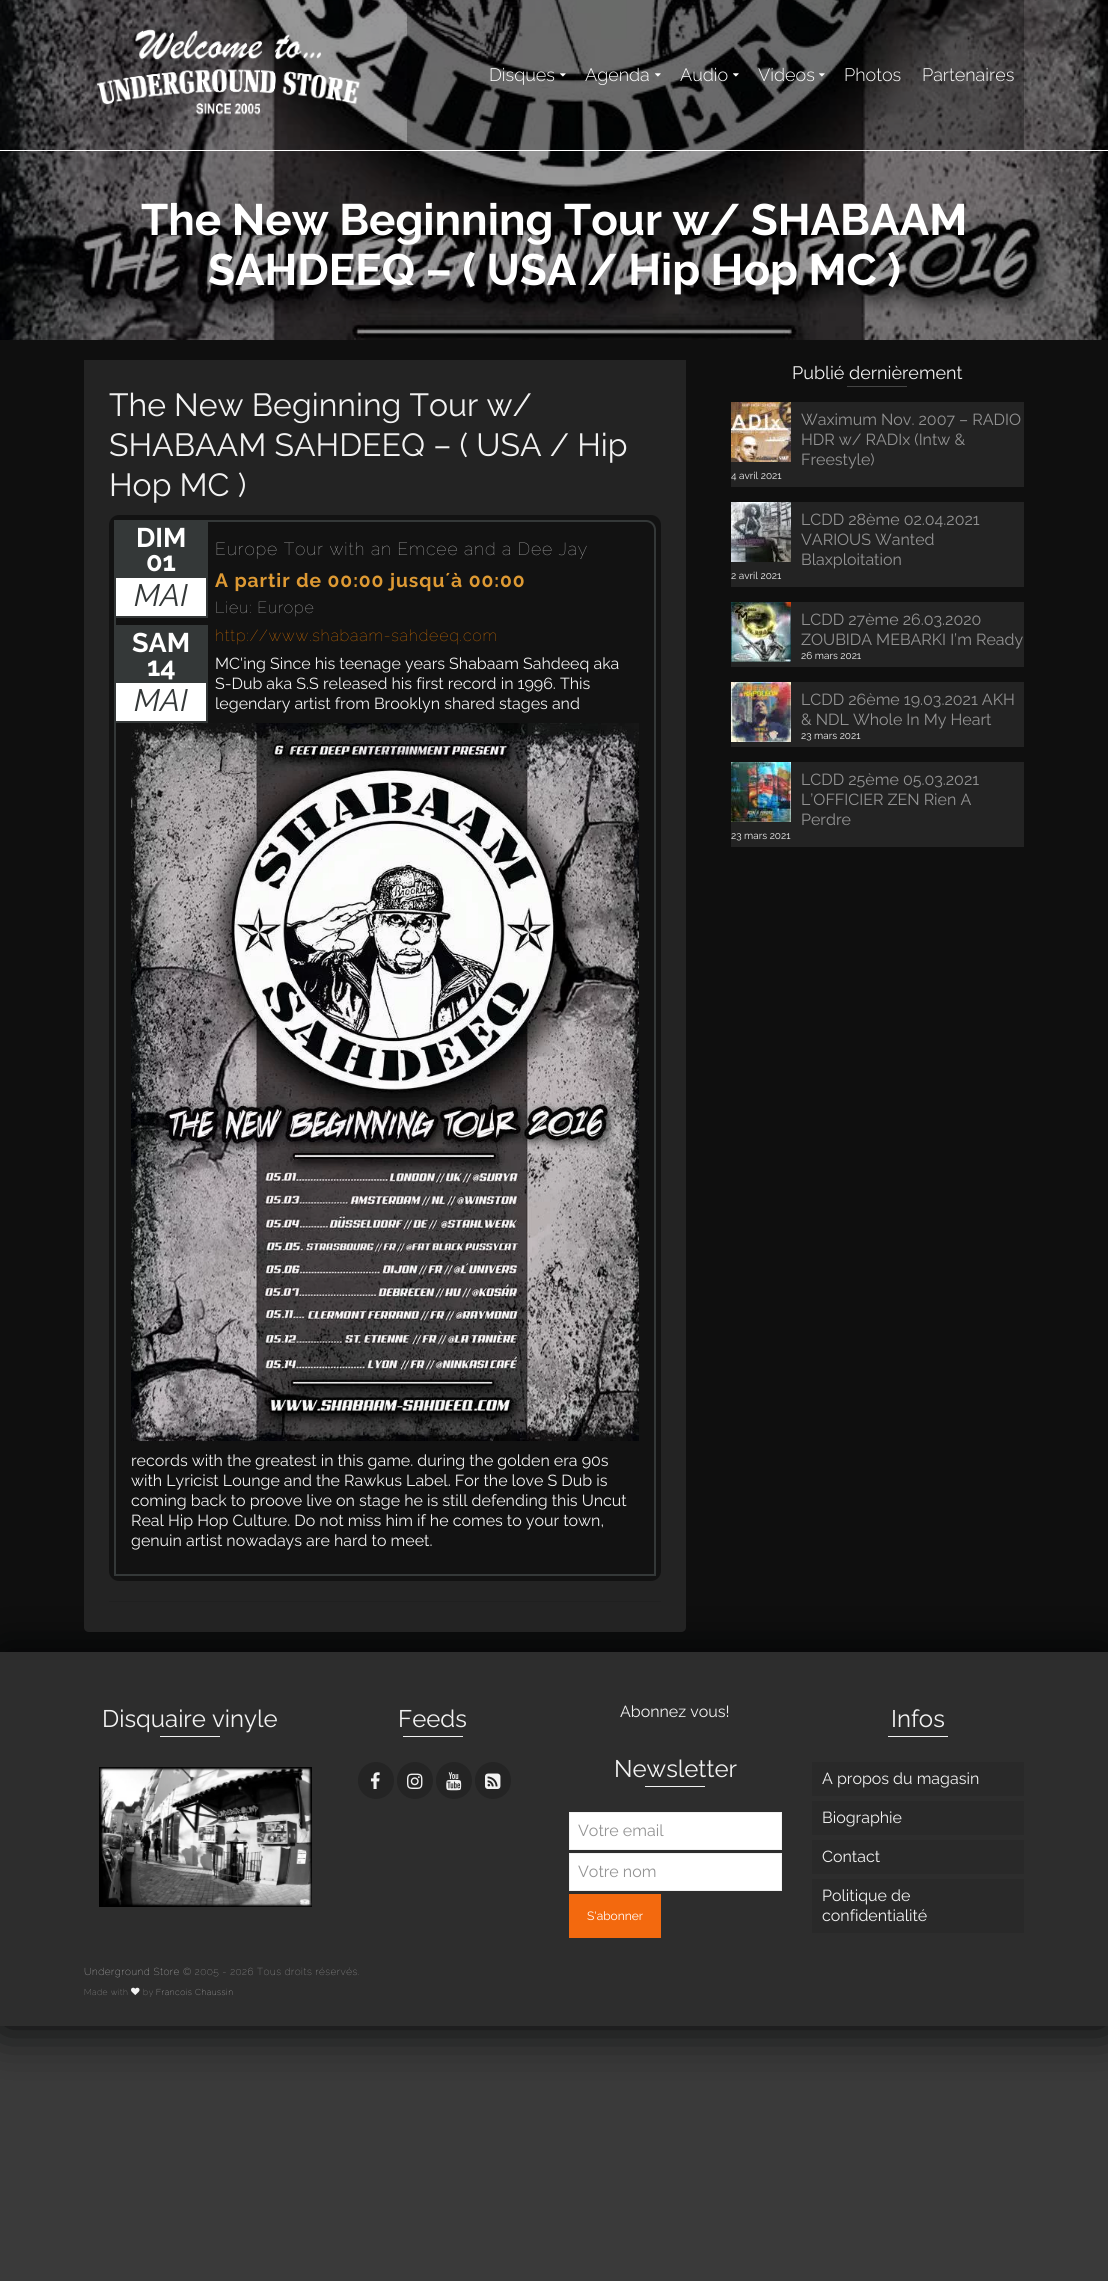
#include <cairo/cairo.h>
#include <math.h>
#include <stddef.h>

typedef struct { double x, y; const char *s; } line_t;
typedef struct { double x, y, w, h; unsigned color; } box_t;
static cairo_t *cr;

static void rgb(unsigned color)
{
	cairo_set_source_rgb(cr, (color >> 16) / 255.0, (color >> 8 & 255) / 255.0, (color & 255) / 255.0);
}

static void tracked(double x, double y, const char *s, double letter, double word)
{
	cairo_move_to(cr, x, y);
	while (*s) {
		char ch[5] = {0};
		int n = 0;
		do ch[n++] = *s++; while ((*s & 0xC0) == 0x80);
		cairo_show_text(cr, ch);
		cairo_rel_move_to(cr, letter + word * (*ch == ' '), 0);
	}
}

static void rrect(double x, double y, double w, double h, double r)
{
	cairo_new_sub_path(cr);
	cairo_arc(cr, x + w - r, y + h - r, r, 0, M_PI / 2);
	cairo_arc(cr, x + r, y + h - r, r, M_PI / 2, M_PI);
	cairo_arc(cr, x + r, y + r, r, M_PI, 1.5 * M_PI);
	cairo_arc(cr, x + w - r, y + r, r, 1.5 * M_PI, 2 * M_PI);
	cairo_close_path(cr);
}

static void soft_shadow(double x, double y, double w, double h, double r, double blur, double alpha)
{
	cairo_push_group_with_content(cr, CAIRO_CONTENT_ALPHA);
	cairo_set_operator(cr, CAIRO_OPERATOR_SOURCE);
	for (int i = 15; i >= -15 && fmin(w, h) + blur * i / 3 > 0; i -= 2) {
		double e = blur * i / 6;
		cairo_set_source_rgba(cr, 0, 0, 0, alpha * erfc((i - 1) / 8.5) / 2);
		rrect(x - e, y - e, w + 2 * e, h + 2 * e, fmax(0, fmin(r + e + blur * .6, fmin(w, h) / 2 + e)));
		cairo_fill(cr);
	}
	cairo_pattern_t *soft = cairo_pop_group(cr);
	cairo_mask(cr, soft);
	cairo_pattern_destroy(soft);
}

static void image(const char *path, double x, double y, double w, double h)
{
	cairo_surface_t *image = cairo_image_surface_create_from_png(path);
	cairo_save(cr);
	cairo_set_source_surface(cr, image, x, y);
	cairo_rectangle(cr, x, y, w, h);
	cairo_fill(cr);
	cairo_restore(cr);
	cairo_surface_destroy(image);
}

int main(void) {
	cairo_surface_t *surface = cairo_image_surface_create(CAIRO_FORMAT_RGB24, 1108, 2281);
	cr = cairo_create(surface);
	cairo_font_options_t *options = cairo_font_options_create();
	cairo_font_options_set_hint_metrics(options, CAIRO_HINT_METRICS_OFF);
	cairo_font_options_set_hint_style(options, CAIRO_HINT_STYLE_NONE);
	cairo_set_font_options(cr, options);
	cairo_set_miter_limit(cr, 4);
	rgb(0x3a3a3a);
	cairo_paint(cr);
	image("img/6.png", 0, 0, 1108, 340);
	rgb(0xffffff);
	cairo_rectangle(cr, 0, 150, 1108, 1);
	cairo_fill(cr);
	image("img/1.png", 96, 29, 264, 86);
	cairo_set_source_rgba(cr, 0, 0, 0, 0.3);
	cairo_rectangle(cr, 407, 0, 617, 150);
	cairo_fill(cr);
	image("img/2.png", 560, 73, 6, 4);
	image("img/3.png", 655, 73, 6, 4);
	image("img/4.png", 733, 73, 6, 4);
	image("img/5.png", 819, 73, 6, 4);
	rgb(0x0f0f0f);
	cairo_rectangle(cr, 0, 340, 1108, 1312);
	cairo_fill(cr);
	rgb(0x010203);
	soft_shadow(1, 1652, 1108, 374, 0, 25, 1);
	rgb(0x232323);
	cairo_new_path(cr);
	cairo_move_to(cr, 84, 360);
	cairo_line_to(cr, 686, 360);
	cairo_line_to(cr, 686, 1627);
	cairo_curve_to(cr, 686, 1630, 684, 1632, 681, 1632);
	cairo_line_to(cr, 89, 1632);
	cairo_curve_to(cr, 86, 1632, 84, 1630, 84, 1627);
	cairo_close_path(cr);
	cairo_fill(cr);
	rgb(0x121212);
	rrect(109, 515, 552, 1066, 10);
	cairo_fill(cr);
	cairo_new_path(cr);
	cairo_move_to(cr, 124, 521);
	cairo_line_to(cr, 646, 521);
	cairo_curve_to(cr, 651, 521, 655, 525, 655, 530);
	cairo_line_to(cr, 655, 1575);
	cairo_line_to(cr, 115, 1575);
	cairo_line_to(cr, 115, 530);
	cairo_curve_to(cr, 115, 525, 119, 521, 124, 521);
	cairo_close_path(cr);
	rgb(0x343838);
	cairo_stroke(cr);
	{
		static const box_t items[] = {
			{114, 520, 94, 58, 0x343838},
			{116, 578, 90, 38, 0xffffff},
			{206, 578, 2, 40, 0x343838},
			{114, 616, 94, 2, 0x343838},
		};
		for (size_t i = 0; i < sizeof items / sizeof *items; i++) {
			rgb(items[i].color);
			cairo_rectangle(cr, items[i].x, items[i].y, items[i].w, items[i].h);
			cairo_fill(cr);
		}
	}
	image("img/7.png", 131, 723, 508, 718);
	{
		static const box_t items[] = {
			{116, 625, 92, 58, 0x343838},
			{116, 683, 90, 38, 0xffffff},
			{206, 683, 2, 40, 0x343838},
			{114, 721, 94, 2, 0x343838},
			{109, 1601, 552, 1, 0x202020},
			{847, 386, 60, 1, 0x444444},
			{731, 402, 293, 85, 0x232323},
		};
		for (size_t i = 0; i < sizeof items / sizeof *items; i++) {
			rgb(items[i].color);
			cairo_rectangle(cr, items[i].x, items[i].y, items[i].w, items[i].h);
			cairo_fill(cr);
		}
	}
	image("img/8.png", 731, 402, 60, 60);
	cairo_rectangle(cr, 731, 502, 293, 85);
	cairo_fill(cr);
	image("img/9.png", 731, 502, 60, 60);
	cairo_rectangle(cr, 731, 602, 293, 65);
	cairo_fill(cr);
	image("img/10.png", 731, 602, 60, 60);
	cairo_rectangle(cr, 731, 682, 293, 65);
	cairo_fill(cr);
	image("img/11.png", 731, 682, 60, 60);
	cairo_rectangle(cr, 731, 762, 293, 85);
	cairo_fill(cr);
	image("img/12.png", 731, 762, 60, 60);
	rgb(0x2d2d2d);
	cairo_rectangle(cr, 0, 1652, 1108, 374);
	cairo_fill(cr);
	rgb(0xf2f2f2);
	cairo_rectangle(cr, 160, 1736, 60, 1);
	cairo_fill(cr);
	image("img/13.png", 99, 1767, 213, 140);
	cairo_rectangle(cr, 403, 1736, 60, 1);
	cairo_fill(cr);
	rgb(0x242424);
	rrect(358, 1762, 36, 37, 18);
	cairo_fill(cr);
	image("img/14.png", 370, 1772, 10, 17);
	rrect(397, 1762, 36, 37, 18);
	cairo_fill(cr);
	image("img/15.png", 407, 1773, 16, 16);
	rrect(436, 1762, 36, 37, 18);
	cairo_fill(cr);
	image("img/16.png", 446, 1772, 16, 19);
	rrect(475, 1762, 36, 37, 18);
	cairo_fill(cr);
	image("img/17.png", 485, 1773, 16, 16);
	rgb(0xf2f2f2);
	cairo_rectangle(cr, 645, 1786, 60, 1);
	cairo_fill(cr);
	rgb(0xffffff);
	cairo_rectangle(cr, 569.5, 1812.5, 212, 37);
	cairo_fill_preserve(cr);
	rgb(0xf2f2f2);
	cairo_set_line_width(cr, 1);
	cairo_stroke(cr);
	rgb(0xffffff);
	cairo_rectangle(cr, 569.5, 1853.5, 212, 37);
	cairo_fill_preserve(cr);
	rgb(0xf2f2f2);
	cairo_stroke(cr);
	{
		static const box_t items[] = {
			{569, 1894, 92, 44, 0xf3690e},
			{888, 1736, 60, 1, 0xf2f2f2},
			{812, 1762, 212, 34, 0x292929},
			{812, 1801, 212, 34, 0x292929},
			{812, 1840, 212, 34, 0x292929},
			{812, 1879, 212, 54, 0x292929},
		};
		for (size_t i = 0; i < sizeof items / sizeof *items; i++) {
			rgb(items[i].color);
			cairo_rectangle(cr, items[i].x, items[i].y, items[i].w, items[i].h);
			cairo_fill(cr);
		}
	}
	image("img/18.png", 131, 1987, 9, 8);
	cairo_select_font_face(cr, "Raleway Light", CAIRO_FONT_SLANT_NORMAL, CAIRO_FONT_WEIGHT_NORMAL);
	cairo_set_font_size(cr, 18);
	rgb(0xffffff);
	{
		static const line_t items[] = {
			{489, 81, "Disques"},
			{585, 81, "Agenda"},
			{680, 81, "Audio"},
			{758, 81, "Videos"},
			{844, 81, "Photos"},
			{922, 81, "Partenaires"},
		};
		for (size_t i = 0; i < sizeof items / sizeof *items; i++) {
			cairo_move_to(cr, items[i].x, items[i].y);
			cairo_show_text(cr, items[i].s);
		}
	}
	cairo_select_font_face(cr, "Raleway", CAIRO_FONT_SLANT_NORMAL, CAIRO_FONT_WEIGHT_BOLD);
	cairo_set_font_size(cr, 44);
	cairo_move_to(cr, 141, 235);
	cairo_show_text(cr, "The New Beginning Tour w/ SHABAAM");
	cairo_move_to(cr, 208, 285);
	cairo_show_text(cr, "SAHDEEQ – ( USA / Hip Hop MC )");
	cairo_select_font_face(cr, "Raleway", CAIRO_FONT_SLANT_NORMAL, CAIRO_FONT_WEIGHT_NORMAL);
	cairo_set_font_size(cr, 32);
	rgb(0xf2f2f2);
	{
		static const line_t items[] = {
			{109, 416, "The New Beginning Tour w/"},
			{109, 456, "SHABAAM SAHDEEQ – ( USA / Hip"},
			{109, 496, "Hop MC )"},
		};
		for (size_t i = 0; i < sizeof items / sizeof *items; i++) {
			cairo_move_to(cr, items[i].x, items[i].y);
			cairo_show_text(cr, items[i].s);
		}
	}
	cairo_select_font_face(cr, "Raleway", CAIRO_FONT_SLANT_NORMAL, CAIRO_FONT_WEIGHT_BOLD);
	cairo_set_font_size(cr, 27);
	rgb(0xffffff);
	cairo_move_to(cr, 136, 547);
	cairo_show_text(cr, "DIM");
	cairo_move_to(cr, 146, 571);
	cairo_show_text(cr, "01");
	cairo_select_font_face(cr, "Raleway", CAIRO_FONT_SLANT_ITALIC, CAIRO_FONT_WEIGHT_NORMAL);
	cairo_set_font_size(cr, 31);
	rgb(0x343838);
	cairo_move_to(cr, 134, 606);
	cairo_show_text(cr, "MAI");
	cairo_select_font_face(cr, "Raleway Thin", CAIRO_FONT_SLANT_NORMAL, CAIRO_FONT_WEIGHT_NORMAL);
	cairo_set_font_size(cr, 17.6);
	rgb(0xbfbfbf);
	tracked(215, 555, "Europe Tour with an Emcee and a Dee Jay", 0.9, 0);
	cairo_select_font_face(cr, "Raleway", CAIRO_FONT_SLANT_NORMAL, CAIRO_FONT_WEIGHT_BOLD);
	cairo_set_font_size(cr, 19.25);
	rgb(0xdd9933);
	tracked(215, 587, "A partir de 00:00 jusqu´à 00:00", 0.95, 0);
	cairo_select_font_face(cr, "Raleway Thin", CAIRO_FONT_SLANT_NORMAL, CAIRO_FONT_WEIGHT_NORMAL);
	cairo_set_font_size(cr, 16);
	rgb(0xbfbfbf);
	tracked(215, 613, "Lieu: Europe", 0.8, 0);
	rgb(0xe87b00);
	tracked(215, 641, "http://www.shabaam-sahdeeq.com", 0.8, 0);
	cairo_select_font_face(cr, "Raleway", CAIRO_FONT_SLANT_NORMAL, CAIRO_FONT_WEIGHT_NORMAL);
	rgb(0xf2f2f2);
	{
		static const line_t items[] = {
			{215, 669, "MC'ing Since his teenage years Shabaam Sahdeeq aka"},
			{215, 689, "S-Dub aka S.S released his first record in 1996. This"},
			{215, 709, "legendary artist from Brooklyn shared stages and"},
			{131, 1466, "records with the greatest in this game. during the golden era 90s"},
			{131, 1486, "with Lyricist Lounge and the Rawkus Label. For the love S Dub is"},
			{131, 1506, "coming back to proove live on stage he is still defending this Uncut"},
			{131, 1526, "Real Hip Hop Culture. Do not miss him if he comes to your town,"},
			{131, 1546, "genuin artist nowadays are hard to meet."},
		};
		for (size_t i = 0; i < sizeof items / sizeof *items; i++) {
			cairo_move_to(cr, items[i].x, items[i].y);
			cairo_show_text(cr, items[i].s);
		}
	}
	cairo_select_font_face(cr, "Raleway", CAIRO_FONT_SLANT_NORMAL, CAIRO_FONT_WEIGHT_BOLD);
	cairo_set_font_size(cr, 27);
	rgb(0xffffff);
	cairo_move_to(cr, 132, 652);
	cairo_show_text(cr, "SAM");
	cairo_move_to(cr, 147, 676);
	cairo_show_text(cr, "14");
	cairo_select_font_face(cr, "Raleway", CAIRO_FONT_SLANT_ITALIC, CAIRO_FONT_WEIGHT_NORMAL);
	cairo_set_font_size(cr, 31);
	rgb(0x343838);
	cairo_move_to(cr, 134, 711);
	cairo_show_text(cr, "MAI");
	cairo_select_font_face(cr, "Raleway", CAIRO_FONT_SLANT_NORMAL, CAIRO_FONT_WEIGHT_NORMAL);
	cairo_set_font_size(cr, 18);
	rgb(0xf2f2f2);
	cairo_move_to(cr, 792, 379);
	cairo_show_text(cr, "Publié dernièrement");
	cairo_set_font_size(cr, 16);
	rgb(0x939393);
	{
		static const line_t items[] = {
			{801, 425, "Waximum Nov. 2007 – RADIO"},
			{801, 445, "HDR w/ RADIx (Intw &"},
			{801, 465, "Freestyle)"},
		};
		for (size_t i = 0; i < sizeof items / sizeof *items; i++) {
			cairo_move_to(cr, items[i].x, items[i].y);
			cairo_show_text(cr, items[i].s);
		}
	}
	cairo_set_font_size(cr, 10);
	rgb(0xf2f2f2);
	cairo_move_to(cr, 731, 479);
	cairo_show_text(cr, "4 avril 2021");
	cairo_set_font_size(cr, 16);
	rgb(0x939393);
	{
		static const line_t items[] = {
			{801, 525, "LCDD 28ème 02.04.2021"},
			{801, 545, "VARIOUS Wanted"},
			{801, 565, "Blaxploitation"},
		};
		for (size_t i = 0; i < sizeof items / sizeof *items; i++) {
			cairo_move_to(cr, items[i].x, items[i].y);
			cairo_show_text(cr, items[i].s);
		}
	}
	cairo_set_font_size(cr, 10);
	rgb(0xf2f2f2);
	cairo_move_to(cr, 731, 579);
	cairo_show_text(cr, "2 avril 2021");
	cairo_set_font_size(cr, 16);
	rgb(0x939393);
	cairo_move_to(cr, 801, 625);
	cairo_show_text(cr, "LCDD 27ème 26.03.2020");
	cairo_move_to(cr, 801, 645);
	cairo_show_text(cr, "ZOUBIDA MEBARKI I’m Ready");
	cairo_set_font_size(cr, 10);
	rgb(0xf2f2f2);
	cairo_move_to(cr, 801, 659);
	cairo_show_text(cr, "26 mars 2021");
	cairo_set_font_size(cr, 16);
	rgb(0x939393);
	cairo_move_to(cr, 801, 705);
	cairo_show_text(cr, "LCDD 26ème 19.03.2021 AKH");
	cairo_move_to(cr, 801, 725);
	cairo_show_text(cr, "& NDL Whole In My Heart");
	cairo_set_font_size(cr, 10);
	rgb(0xf2f2f2);
	cairo_move_to(cr, 801, 739);
	cairo_show_text(cr, "23 mars 2021");
	cairo_set_font_size(cr, 16);
	rgb(0x939393);
	{
		static const line_t items[] = {
			{801, 785, "LCDD 25ème 05.03.2021"},
			{801, 805, "L’OFFICIER ZEN Rien A"},
			{801, 825, "Perdre"},
		};
		for (size_t i = 0; i < sizeof items / sizeof *items; i++) {
			cairo_move_to(cr, items[i].x, items[i].y);
			cairo_show_text(cr, items[i].s);
		}
	}
	cairo_set_font_size(cr, 10);
	rgb(0xf2f2f2);
	cairo_move_to(cr, 731, 839);
	cairo_show_text(cr, "23 mars 2021");
	cairo_set_font_size(cr, 24);
	cairo_move_to(cr, 102, 1727);
	cairo_show_text(cr, "Disquaire vinyle");
	cairo_move_to(cr, 398, 1727);
	cairo_show_text(cr, "Feeds");
	cairo_set_font_size(cr, 16);
	cairo_move_to(cr, 620, 1717);
	cairo_show_text(cr, "Abonnez vous!");
	cairo_set_font_size(cr, 24);
	cairo_move_to(cr, 614, 1777);
	cairo_show_text(cr, "Newsletter");
	cairo_set_font_size(cr, 16);
	rgb(0x939393);
	cairo_move_to(cr, 578, 1836);
	cairo_show_text(cr, "Votre email");
	cairo_move_to(cr, 578, 1877);
	cairo_show_text(cr, "Votre nom");
	cairo_set_font_size(cr, 12);
	rgb(0xffffff);
	cairo_move_to(cr, 587, 1920);
	cairo_show_text(cr, "S'abonner");
	cairo_set_font_size(cr, 24);
	rgb(0xf2f2f2);
	cairo_move_to(cr, 891, 1727);
	cairo_show_text(cr, "Infos");
	cairo_set_font_size(cr, 16);
	{
		static const line_t items[] = {
			{822, 1784, "A propos du magasin"},
			{822, 1823, "Biographie"},
			{822, 1862, "Contact"},
			{822, 1901, "Politique de"},
			{822, 1921, "confidentialité"},
		};
		for (size_t i = 0; i < sizeof items / sizeof *items; i++) {
			cairo_move_to(cr, items[i].x, items[i].y);
			cairo_show_text(cr, items[i].s);
		}
	}
	cairo_select_font_face(cr, "Raleway Thin", CAIRO_FONT_SLANT_NORMAL, CAIRO_FONT_WEIGHT_NORMAL);
	cairo_set_font_size(cr, 10);
	tracked(84, 1975, "Underground Store", 0.5, 0);
	rgb(0xbfbfbf);
	tracked(183, 1975, "© 2005 - 2026 Tous droits réservés.", 0.5, 0);
	cairo_set_font_size(cr, 8.5);
	tracked(84, 1995, "Made with", 0.5, 0);
	tracked(143, 1995, "by", 0.5, 0);
	rgb(0xf2f2f2);
	tracked(156, 1995, "Francois Chaussin", 0.5, 0);
	cairo_surface_write_to_png(surface, "page.png");
	cairo_font_options_destroy(options);
	cairo_destroy(cr);
	cairo_surface_destroy(surface);
	return 0;
}
